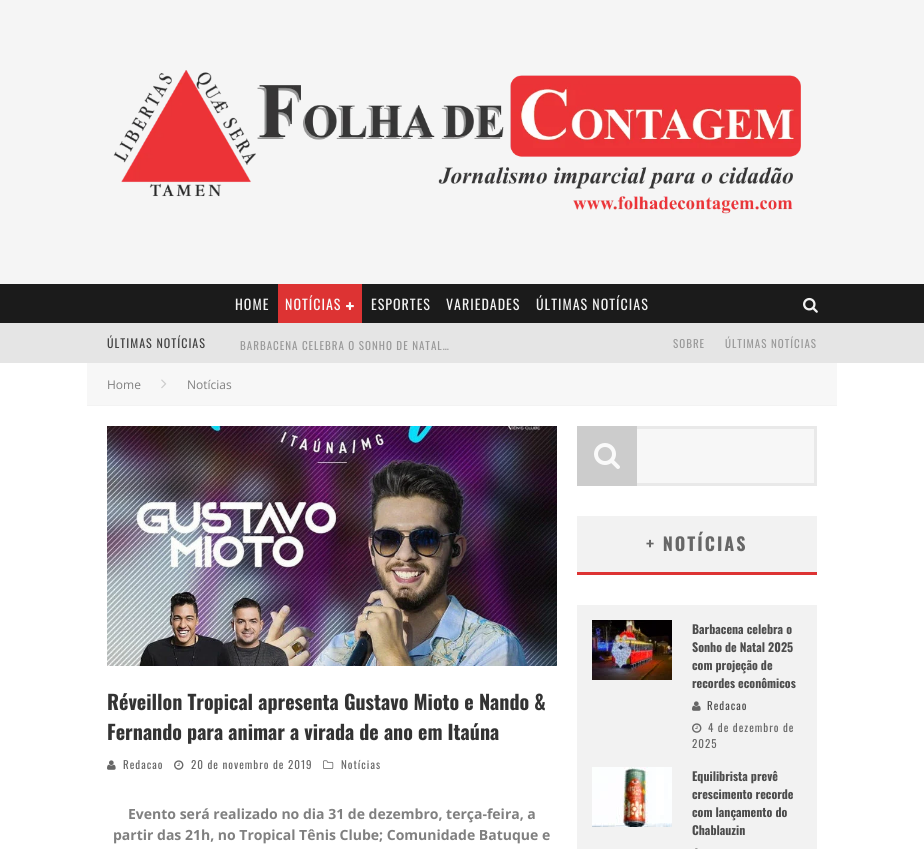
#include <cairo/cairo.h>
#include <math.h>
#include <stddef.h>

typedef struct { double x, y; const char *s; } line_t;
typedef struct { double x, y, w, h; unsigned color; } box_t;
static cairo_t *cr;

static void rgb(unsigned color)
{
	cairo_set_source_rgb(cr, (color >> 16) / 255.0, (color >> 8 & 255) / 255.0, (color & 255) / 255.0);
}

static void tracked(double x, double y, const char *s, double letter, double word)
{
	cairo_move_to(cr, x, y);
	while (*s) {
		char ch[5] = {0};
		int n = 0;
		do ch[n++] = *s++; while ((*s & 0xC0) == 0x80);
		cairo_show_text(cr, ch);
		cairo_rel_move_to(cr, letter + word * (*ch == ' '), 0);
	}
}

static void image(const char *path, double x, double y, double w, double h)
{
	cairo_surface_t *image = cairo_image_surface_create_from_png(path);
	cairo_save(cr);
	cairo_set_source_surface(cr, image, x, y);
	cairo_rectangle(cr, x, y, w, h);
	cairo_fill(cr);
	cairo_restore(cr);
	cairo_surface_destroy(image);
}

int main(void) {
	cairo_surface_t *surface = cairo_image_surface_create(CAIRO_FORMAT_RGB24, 924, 849);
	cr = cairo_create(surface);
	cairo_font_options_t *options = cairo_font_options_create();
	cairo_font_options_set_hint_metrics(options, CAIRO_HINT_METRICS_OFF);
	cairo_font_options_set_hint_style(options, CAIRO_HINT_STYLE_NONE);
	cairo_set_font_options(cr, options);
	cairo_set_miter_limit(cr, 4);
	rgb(0xffffff);
	cairo_paint(cr);
	rgb(0xf5f5f5);
	cairo_rectangle(cr, 0, 0, 924, 284);
	cairo_fill(cr);
	image("img/1.png", 113, 70, 688, 144);
	rgb(0x1b1b1b);
	cairo_rectangle(cr, 0, 284, 924, 39);
	cairo_fill(cr);
	rgb(0xdd3333);
	cairo_rectangle(cr, 278, 284, 84, 39);
	cairo_fill(cr);
	image("img/2.png", 346, 302, 8, 8);
	image("img/3.png", 803, 297, 15, 16);
	{
		static const box_t items[] = {
			{0, 323, 924, 40, 0xe5e5e5},
			{87, 363, 750, 42, 0xf7f7f7},
			{87, 405, 750, 1, 0xf3f3f3},
		};
		for (size_t i = 0; i < sizeof items / sizeof *items; i++) {
			rgb(items[i].color);
			cairo_rectangle(cr, items[i].x, items[i].y, items[i].w, items[i].h);
			cairo_fill(cr);
		}
	}
	image("img/4.png", 161, 379, 6, 10);
	image("img/5.png", 107, 426, 450, 240);
	image("img/6.png", 107, 760, 9, 10);
	image("img/7.png", 174, 760, 10, 10);
	image("img/8.png", 323, 760, 11, 9);
	rgb(0xf7f7f7);
	cairo_rectangle(cr, 637, 429, 177, 54);
	cairo_fill(cr);
	cairo_rectangle(cr, 578.5, 427.5, 237, 57);
	rgb(0xe9e9e9);
	cairo_set_line_width(cr, 3);
	cairo_stroke(cr);
	rgb(0xcccccc);
	cairo_rectangle(cr, 577, 426, 60, 60);
	cairo_fill(cr);
	image("img/9.png", 594, 443, 26, 26);
	{
		static const box_t items[] = {
			{577, 516, 240, 56, 0xf2f2f2},
			{577, 572, 240, 3, 0xdd3333},
			{577, 605, 240, 244, 0xf2f2f2},
		};
		for (size_t i = 0; i < sizeof items / sizeof *items; i++) {
			rgb(items[i].color);
			cairo_rectangle(cr, items[i].x, items[i].y, items[i].w, items[i].h);
			cairo_fill(cr);
		}
	}
	image("img/10.png", 592, 620, 80, 60);
	image("img/11.png", 692, 701, 9, 10);
	image("img/12.png", 692, 723, 10, 10);
	image("img/13.png", 592, 767, 80, 60);
	image("img/14.png", 695, 848, 3, 1);
	cairo_select_font_face(cr, "Oswald", CAIRO_FONT_SLANT_NORMAL, CAIRO_FONT_WEIGHT_NORMAL);
	cairo_set_font_size(cr, 14);
	tracked(235, 310, "HOME", 1, 0);
	rgb(0xfafafa);
	tracked(285, 310, "NOTÍCIAS", 1, 0);
	rgb(0xf2f2f2);
	{
		static const line_t items[] = {
			{371, 310, "ESPORTES"},
			{446, 310, "VARIEDADES"},
			{536, 310, "ÚLTIMAS NOTÍCIAS"},
		};
		for (size_t i = 0; i < sizeof items / sizeof *items; i++) {
			tracked(items[i].x, items[i].y, items[i].s, 1, 0);
		}
	}
	cairo_set_font_size(cr, 12);
	rgb(0x424242);
	tracked(107, 348, "ÚLTIMAS NOTÍCIAS", 1, 0);
	cairo_set_font_size(cr, 11);
	rgb(0x999999);
	{
		static const line_t items[] = {
			{240, 350, "BARBACENA CELEBRA O SONHO DE NATAL…"},
			{673, 348, "SOBRE"},
			{725, 348, "ÚLTIMAS NOTÍCIAS"},
		};
		for (size_t i = 0; i < sizeof items / sizeof *items; i++) {
			tracked(items[i].x, items[i].y, items[i].s, 1, 0);
		}
	}
	cairo_select_font_face(cr, "Open Sans", CAIRO_FONT_SLANT_NORMAL, CAIRO_FONT_WEIGHT_NORMAL);
	cairo_set_font_size(cr, 12);
	rgb(0x808080);
	cairo_move_to(cr, 107, 389);
	cairo_show_text(cr, "Home");
	cairo_move_to(cr, 187, 389);
	cairo_show_text(cr, "Notícias");
	cairo_select_font_face(cr, "Oswald", CAIRO_FONT_SLANT_NORMAL, CAIRO_FONT_WEIGHT_BOLD);
	cairo_set_font_size(cr, 20);
	rgb(0x333333);
	cairo_move_to(cr, 107, 710);
	cairo_show_text(cr, "Réveillon Tropical apresenta Gustavo Mioto e Nando &");
	cairo_move_to(cr, 107, 740);
	cairo_show_text(cr, "Fernando para animar a virada de ano em Itaúna");
	cairo_select_font_face(cr, "Oswald", CAIRO_FONT_SLANT_NORMAL, CAIRO_FONT_WEIGHT_NORMAL);
	cairo_set_font_size(cr, 11);
	rgb(0x676767);
	{
		static const line_t items[] = {
			{123, 769, "Redacao"},
			{191, 769, "20 de novembro de 2019"},
			{341, 769, "Notícias"},
		};
		for (size_t i = 0; i < sizeof items / sizeof *items; i++) {
			tracked(items[i].x, items[i].y, items[i].s, 1, 0);
		}
	}
	cairo_select_font_face(cr, "Open Sans", CAIRO_FONT_SLANT_NORMAL, CAIRO_FONT_WEIGHT_BOLD);
	cairo_set_font_size(cr, 14);
	rgb(0x808080);
	cairo_move_to(cr, 128, 819);
	cairo_show_text(cr, "Evento será realizado no dia 31 de dezembro, terça-feira, a");
	cairo_move_to(cr, 113, 840);
	cairo_show_text(cr, "partir das 21h, no Tropical Tênis Clube; Comunidade Batuque e");
	cairo_select_font_face(cr, "Oswald", CAIRO_FONT_SLANT_NORMAL, CAIRO_FONT_WEIGHT_BOLD);
	cairo_set_font_size(cr, 18);
	rgb(0x676767);
	tracked(646, 551, "+ NOTÍCIAS", 2, 0);
	cairo_set_font_size(cr, 12);
	rgb(0x4d4d4d);
	{
		static const line_t items[] = {
			{692, 634, "Barbacena celebra o"},
			{692, 652, "Sonho de Natal 2025"},
			{692, 670, "com projeção de"},
			{692, 688, "recordes econômicos"},
		};
		for (size_t i = 0; i < sizeof items / sizeof *items; i++) {
			cairo_move_to(cr, items[i].x, items[i].y);
			cairo_show_text(cr, items[i].s);
		}
	}
	cairo_select_font_face(cr, "Oswald", CAIRO_FONT_SLANT_NORMAL, CAIRO_FONT_WEIGHT_NORMAL);
	cairo_set_font_size(cr, 11);
	tracked(707, 710, "Redacao", 1, 0);
	rgb(0x676767);
	tracked(708, 732, "4 de dezembro de", 1, 0);
	tracked(692, 748, "2025", 1, 0);
	cairo_select_font_face(cr, "Oswald", CAIRO_FONT_SLANT_NORMAL, CAIRO_FONT_WEIGHT_BOLD);
	cairo_set_font_size(cr, 12);
	rgb(0x4d4d4d);
	{
		static const line_t items[] = {
			{692, 781, "Equilibrista prevê"},
			{692, 799, "crescimento recorde"},
			{692, 817, "com lançamento do"},
			{692, 835, "Chablauzin"},
		};
		for (size_t i = 0; i < sizeof items / sizeof *items; i++) {
			cairo_move_to(cr, items[i].x, items[i].y);
			cairo_show_text(cr, items[i].s);
		}
	}
	cairo_surface_write_to_png(surface, "page.png");
	cairo_font_options_destroy(options);
	cairo_destroy(cr);
	cairo_surface_destroy(surface);
	return 0;
}
